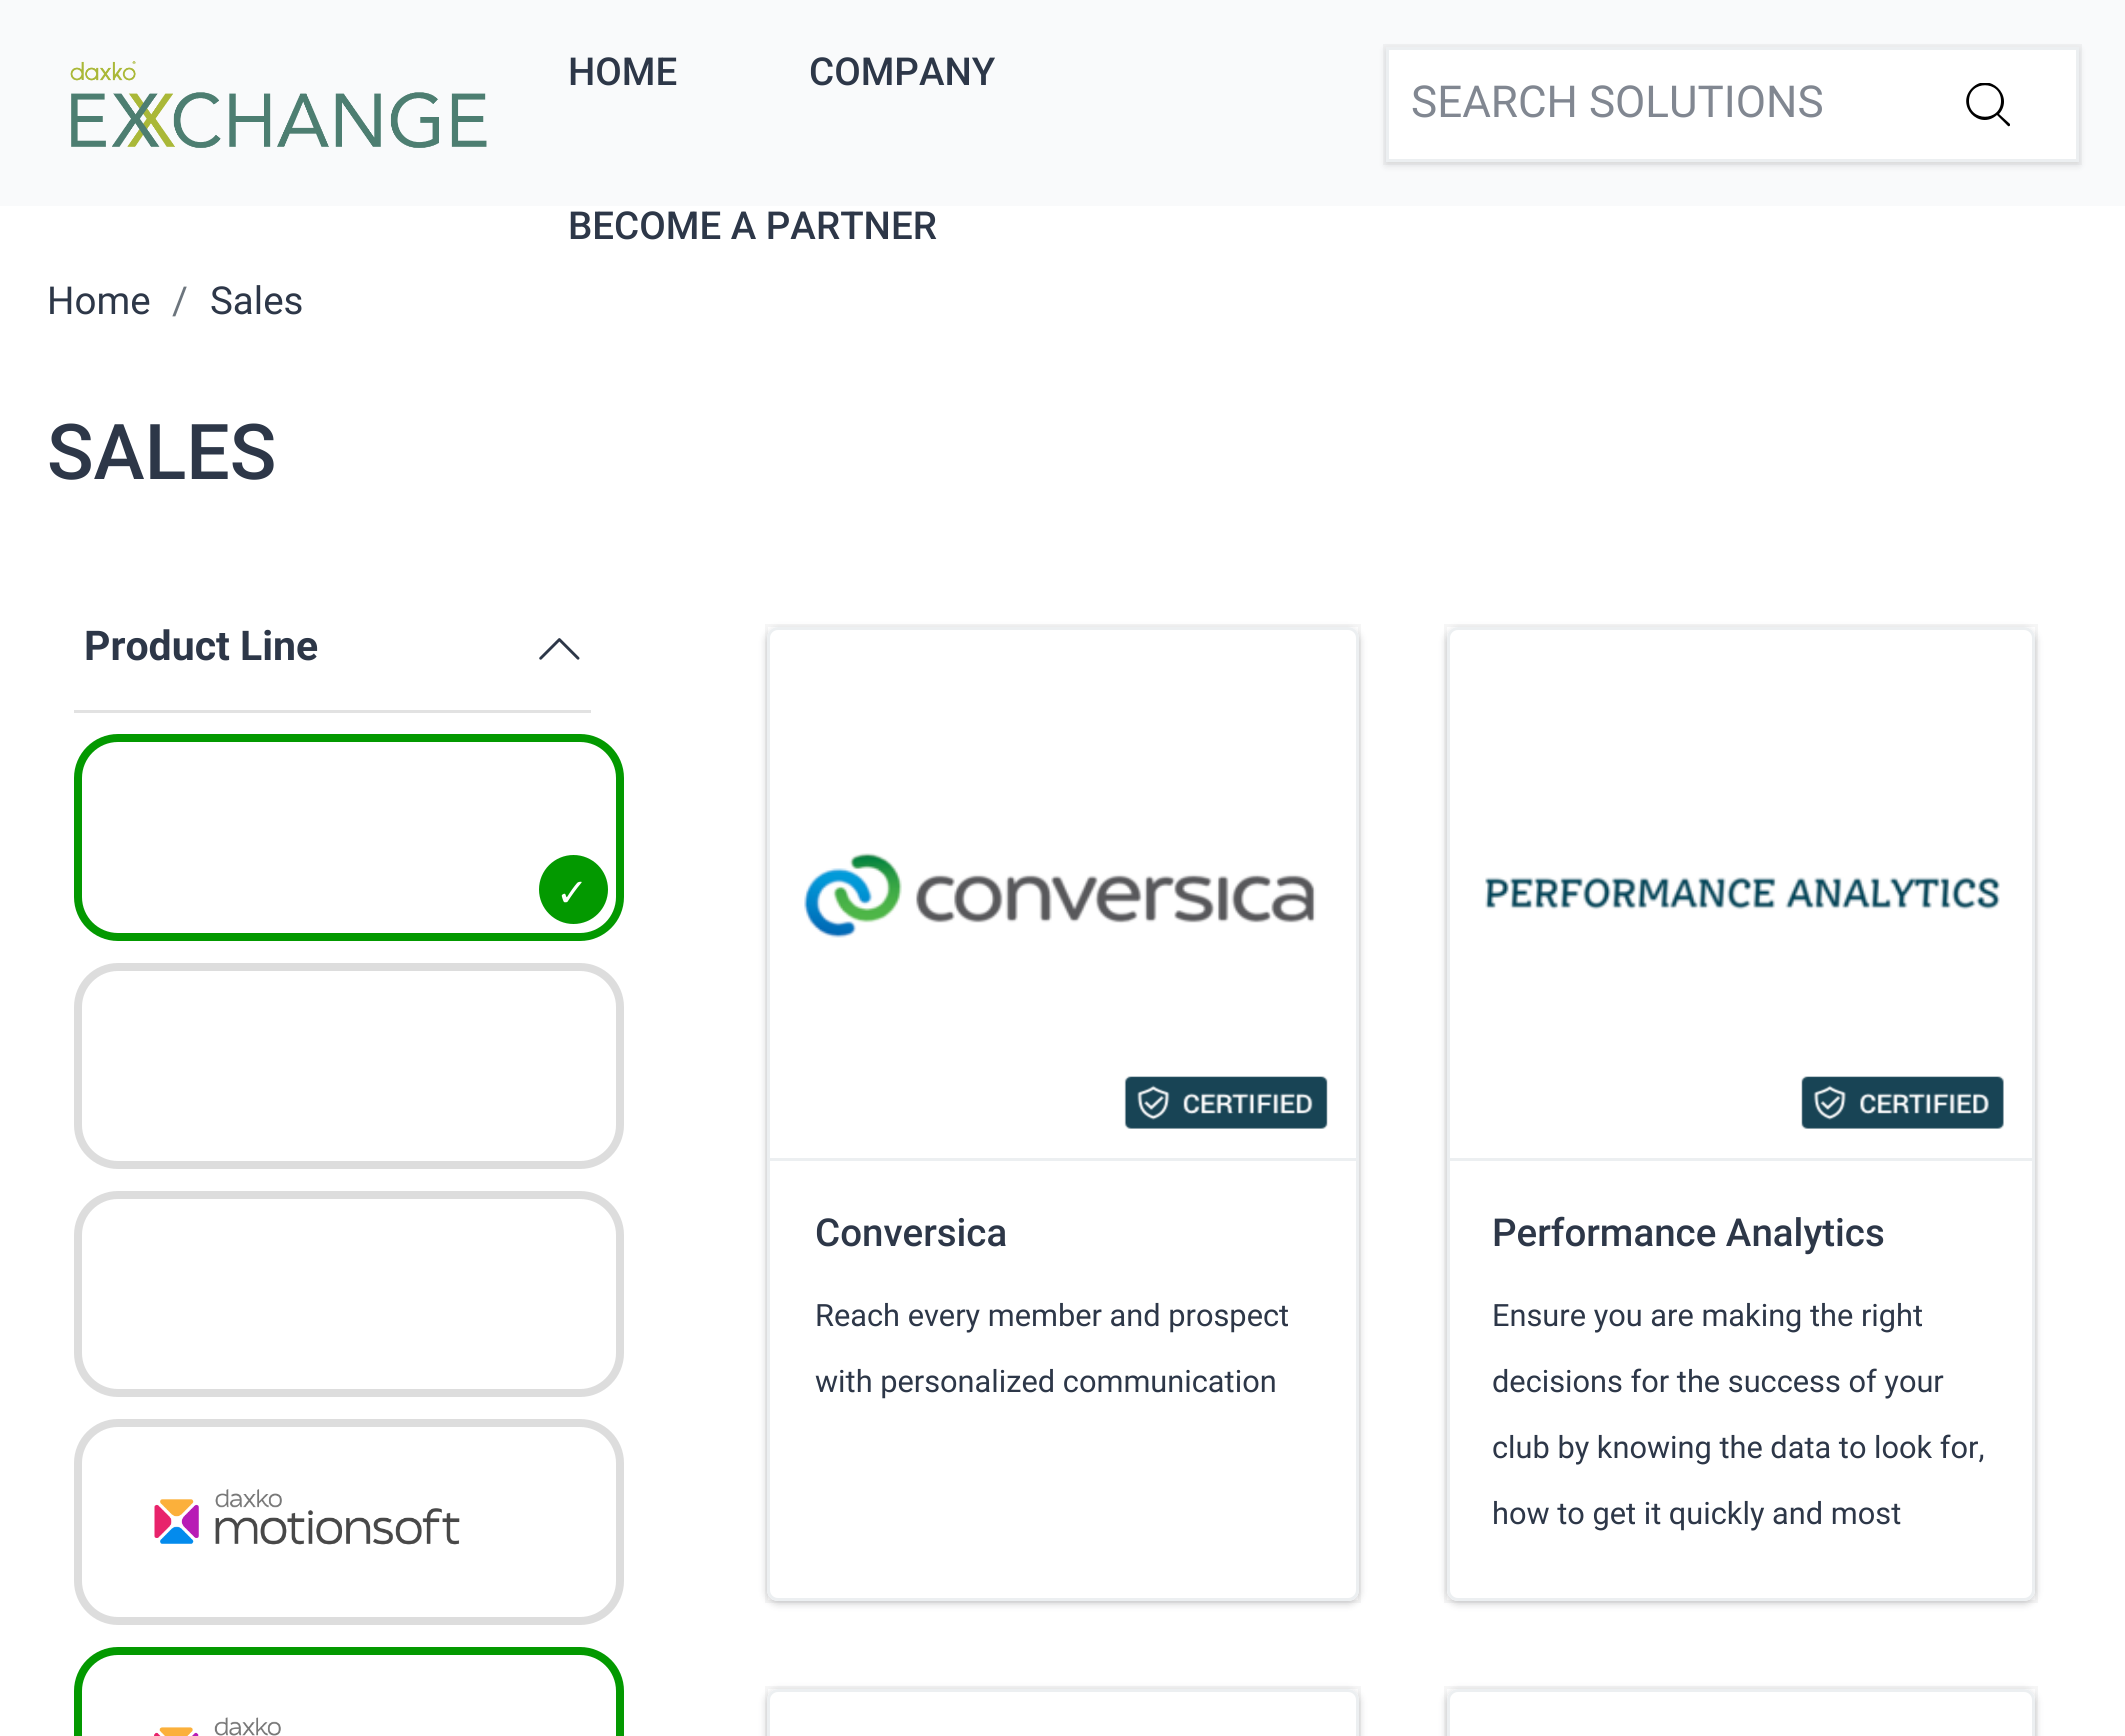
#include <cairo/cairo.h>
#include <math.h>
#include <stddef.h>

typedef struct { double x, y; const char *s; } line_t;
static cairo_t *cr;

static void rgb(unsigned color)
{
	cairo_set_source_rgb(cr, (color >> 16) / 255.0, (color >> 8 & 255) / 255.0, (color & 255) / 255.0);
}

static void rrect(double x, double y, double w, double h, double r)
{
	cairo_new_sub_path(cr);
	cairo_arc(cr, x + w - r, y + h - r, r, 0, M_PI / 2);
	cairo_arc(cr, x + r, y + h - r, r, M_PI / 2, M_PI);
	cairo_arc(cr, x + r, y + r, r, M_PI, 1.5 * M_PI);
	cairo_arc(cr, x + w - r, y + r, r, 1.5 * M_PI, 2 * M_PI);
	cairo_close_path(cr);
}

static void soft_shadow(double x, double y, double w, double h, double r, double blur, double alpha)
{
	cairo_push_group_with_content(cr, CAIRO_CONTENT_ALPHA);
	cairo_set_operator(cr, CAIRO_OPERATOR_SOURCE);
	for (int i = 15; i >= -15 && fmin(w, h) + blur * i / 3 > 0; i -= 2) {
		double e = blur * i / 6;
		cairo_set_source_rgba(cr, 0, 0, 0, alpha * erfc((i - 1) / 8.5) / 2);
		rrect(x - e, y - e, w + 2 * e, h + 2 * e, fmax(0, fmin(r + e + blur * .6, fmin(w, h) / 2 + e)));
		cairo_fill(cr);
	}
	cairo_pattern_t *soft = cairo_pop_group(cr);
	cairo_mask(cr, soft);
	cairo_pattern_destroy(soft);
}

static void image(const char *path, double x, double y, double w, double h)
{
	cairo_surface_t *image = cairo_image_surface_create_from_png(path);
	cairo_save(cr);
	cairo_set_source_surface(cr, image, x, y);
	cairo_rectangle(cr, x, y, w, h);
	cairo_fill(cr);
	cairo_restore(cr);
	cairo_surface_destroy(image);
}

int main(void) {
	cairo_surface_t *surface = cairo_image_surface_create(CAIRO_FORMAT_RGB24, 2125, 1736);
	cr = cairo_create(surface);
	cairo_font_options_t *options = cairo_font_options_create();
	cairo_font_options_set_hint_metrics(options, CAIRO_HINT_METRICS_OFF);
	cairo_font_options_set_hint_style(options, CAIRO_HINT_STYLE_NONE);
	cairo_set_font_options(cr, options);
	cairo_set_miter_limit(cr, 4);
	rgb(0xffffff);
	cairo_paint(cr);
	rgb(0xf9fafb);
	cairo_rectangle(cr, 0, 0, 2125, 206);
	cairo_fill(cr);
	image("img/1.png", 70, 61, 417, 87);
	rgb(0x3f3f44);
	soft_shadow(1386, 50, 693, 115, 0, 4, 0.15);
	cairo_rectangle(cr, 1384.5, 45.5, 696, 118);
	cairo_set_source_rgba(cr, 0.247, 0.247, 0.267, 0.05);
	cairo_set_line_width(cr, 3);
	cairo_stroke(cr);
	rgb(0xffffff);
	cairo_rectangle(cr, 1387.5, 48.5, 690, 112);
	cairo_fill_preserve(cr);
	rgb(0xeceff1);
	cairo_stroke(cr);
	cairo_save(cr);
	cairo_rectangle(cr, 1966, 83, 44, 44);
	cairo_clip(cr);
	rgb(0x000000);
	cairo_new_path(cr);
	cairo_move_to(cr, 2010, 124);
	cairo_line_to(cr, 1999, 114);
	cairo_curve_to(cr, 2015, 96, 1989, 71, 1972, 88);
	cairo_curve_to(cr, 1955, 105, 1979, 131, 1997, 115);
	cairo_line_to(cr, 2008, 126);
	cairo_curve_to(cr, 2009, 127, 2011, 125, 2010, 124);
	cairo_close_path(cr);
	cairo_move_to(cr, 1969, 101);
	cairo_curve_to(cr, 1969, 80, 2001, 80, 2001, 101);
	cairo_curve_to(cr, 2001, 122, 1969, 122, 1969, 101);
	cairo_close_path(cr);
	cairo_fill(cr);
	cairo_restore(cr);
	rgb(0xe2e2e2);
	cairo_rectangle(cr, 74, 710, 517, 3);
	cairo_fill(cr);
	image("img/2.png", 539, 638, 41, 22);
	rrect(78, 738, 542, 199, 40);
	rgb(0x039900);
	cairo_set_line_width(cr, 8);
	cairo_stroke(cr);
	cairo_arc(cr, 573.5, 889.5, 30.5, 0, 2 * M_PI);
	cairo_fill_preserve(cr);
	cairo_stroke(cr);
	rrect(78, 967, 542, 198, 40);
	rgb(0xdddddd);
	cairo_stroke(cr);
	rrect(78, 1195, 542, 198, 40);
	cairo_stroke(cr);
	rrect(78, 1423, 542, 198, 40);
	cairo_stroke(cr);
	image("img/3.png", 154, 1489, 306, 56);
	rrect(78, 1651, 542, 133, 40);
	rgb(0x039900);
	cairo_stroke(cr);
	image("img/4.png", 154, 1717, 127, 19);
	cairo_save(cr);
	cairo_set_fill_rule(cr, CAIRO_FILL_RULE_EVEN_ODD);
	cairo_new_path(cr);
	cairo_move_to(cr, 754, 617);
	cairo_line_to(cr, 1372, 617);
	cairo_line_to(cr, 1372, 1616);
	cairo_line_to(cr, 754, 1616);
	cairo_close_path(cr);
	cairo_move_to(cr, 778, 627);
	cairo_line_to(cr, 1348, 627);
	cairo_curve_to(cr, 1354, 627, 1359, 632, 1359, 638);
	cairo_line_to(cr, 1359, 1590);
	cairo_curve_to(cr, 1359, 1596, 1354, 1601, 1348, 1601);
	cairo_line_to(cr, 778, 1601);
	cairo_curve_to(cr, 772, 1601, 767, 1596, 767, 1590);
	cairo_line_to(cr, 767, 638);
	cairo_curve_to(cr, 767, 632, 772, 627, 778, 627);
	cairo_close_path(cr);
	cairo_clip(cr);
	rgb(0x3f3f44);
	soft_shadow(767, 630, 592, 973, 11, 4, 0.3);
	cairo_restore(cr);
	cairo_rectangle(cr, 766.5, 625.5, 593, 976);
	cairo_set_source_rgba(cr, 0.247, 0.247, 0.267, 0.05);
	cairo_set_line_width(cr, 3);
	cairo_stroke(cr);
	rrect(768.5, 628.5, 589, 971, 9.5);
	rgb(0xeceff1);
	cairo_stroke(cr);
	image("img/5.png", 804, 853, 512, 85);
	image("img/6.png", 1124, 1076, 204, 53);
	cairo_rectangle(cr, 770, 1158, 586, 3);
	cairo_fill(cr);
	cairo_save(cr);
	cairo_set_fill_rule(cr, CAIRO_FILL_RULE_EVEN_ODD);
	cairo_new_path(cr);
	cairo_move_to(cr, 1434, 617);
	cairo_line_to(cr, 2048, 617);
	cairo_line_to(cr, 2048, 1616);
	cairo_line_to(cr, 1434, 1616);
	cairo_close_path(cr);
	cairo_move_to(cr, 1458, 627);
	cairo_line_to(cr, 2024, 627);
	cairo_curve_to(cr, 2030, 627, 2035, 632, 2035, 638);
	cairo_line_to(cr, 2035, 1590);
	cairo_curve_to(cr, 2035, 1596, 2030, 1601, 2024, 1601);
	cairo_line_to(cr, 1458, 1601);
	cairo_curve_to(cr, 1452, 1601, 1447, 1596, 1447, 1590);
	cairo_line_to(cr, 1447, 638);
	cairo_curve_to(cr, 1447, 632, 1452, 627, 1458, 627);
	cairo_close_path(cr);
	cairo_clip(cr);
	rgb(0x3f3f44);
	soft_shadow(1447, 630, 588, 973, 11, 4, 0.3);
	cairo_restore(cr);
	cairo_rectangle(cr, 1445.5, 625.5, 591, 976);
	cairo_set_source_rgba(cr, 0.247, 0.247, 0.267, 0.05);
	cairo_stroke(cr);
	rrect(1448.5, 628.5, 585, 971, 9.5);
	rgb(0xeceff1);
	cairo_stroke(cr);
	image("img/7.png", 1485, 877, 515, 33);
	image("img/8.png", 1801, 1076, 203, 53);
	cairo_rectangle(cr, 1449, 1158, 583, 3);
	cairo_fill(cr);
	cairo_save(cr);
	cairo_set_fill_rule(cr, CAIRO_FILL_RULE_EVEN_ODD);
	cairo_new_path(cr);
	cairo_move_to(cr, 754, 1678);
	cairo_line_to(cr, 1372, 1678);
	cairo_line_to(cr, 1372, 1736);
	cairo_line_to(cr, 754, 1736);
	cairo_close_path(cr);
	cairo_move_to(cr, 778, 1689);
	cairo_line_to(cr, 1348, 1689);
	cairo_curve_to(cr, 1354, 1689, 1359, 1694, 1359, 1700);
	cairo_line_to(cr, 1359, 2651);
	cairo_curve_to(cr, 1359, 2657, 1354, 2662, 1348, 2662);
	cairo_line_to(cr, 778, 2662);
	cairo_curve_to(cr, 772, 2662, 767, 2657, 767, 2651);
	cairo_line_to(cr, 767, 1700);
	cairo_curve_to(cr, 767, 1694, 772, 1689, 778, 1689);
	cairo_close_path(cr);
	cairo_clip(cr);
	rgb(0x3f3f44);
	soft_shadow(767, 1691, 592, 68, 11, 4, 0.3);
	cairo_restore(cr);
	cairo_rectangle(cr, 766.5, 1687.5, 593, 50);
	cairo_set_source_rgba(cr, 0.247, 0.247, 0.267, 0.05);
	cairo_stroke(cr);
	rrect(768.5, 1690.5, 589, 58, 9.5);
	rgb(0xeceff1);
	cairo_stroke(cr);
	cairo_save(cr);
	cairo_set_fill_rule(cr, CAIRO_FILL_RULE_EVEN_ODD);
	cairo_new_path(cr);
	cairo_move_to(cr, 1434, 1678);
	cairo_line_to(cr, 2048, 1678);
	cairo_line_to(cr, 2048, 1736);
	cairo_line_to(cr, 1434, 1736);
	cairo_close_path(cr);
	cairo_move_to(cr, 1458, 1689);
	cairo_line_to(cr, 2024, 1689);
	cairo_curve_to(cr, 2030, 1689, 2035, 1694, 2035, 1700);
	cairo_line_to(cr, 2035, 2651);
	cairo_curve_to(cr, 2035, 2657, 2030, 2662, 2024, 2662);
	cairo_line_to(cr, 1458, 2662);
	cairo_curve_to(cr, 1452, 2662, 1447, 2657, 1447, 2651);
	cairo_line_to(cr, 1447, 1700);
	cairo_curve_to(cr, 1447, 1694, 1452, 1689, 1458, 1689);
	cairo_close_path(cr);
	cairo_clip(cr);
	rgb(0x3f3f44);
	soft_shadow(1447, 1691, 588, 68, 11, 4, 0.3);
	cairo_restore(cr);
	cairo_rectangle(cr, 1445.5, 1687.5, 591, 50);
	cairo_set_source_rgba(cr, 0.247, 0.247, 0.267, 0.05);
	cairo_stroke(cr);
	rrect(1448.5, 1690.5, 585, 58, 9.5);
	rgb(0xeceff1);
	cairo_stroke(cr);
	cairo_select_font_face(cr, "Roboto Medium", CAIRO_FONT_SLANT_NORMAL, CAIRO_FONT_WEIGHT_NORMAL);
	cairo_set_font_size(cr, 38.5);
	rgb(0x2d3748);
	{
		static const line_t items[] = {
			{568, 85, "HOME"},
			{809, 85, "COMPANY"},
			{568, 239, "BECOME A PARTNER"},
		};
		for (size_t i = 0; i < sizeof items / sizeof *items; i++) {
			cairo_move_to(cr, items[i].x, items[i].y);
			cairo_show_text(cr, items[i].s);
		}
	}
	cairo_select_font_face(cr, "Roboto", CAIRO_FONT_SLANT_NORMAL, CAIRO_FONT_WEIGHT_NORMAL);
	cairo_set_font_size(cr, 44);
	rgb(0x818791);
	cairo_move_to(cr, 1411, 117);
	cairo_show_text(cr, "SEARCH SOLUTIONS");
	cairo_set_font_size(cr, 38.5);
	rgb(0x2d3748);
	cairo_move_to(cr, 47, 314);
	cairo_show_text(cr, "Home");
	rgb(0x6c757d);
	cairo_move_to(cr, 172, 314);
	cairo_show_text(cr, "/");
	rgb(0x2d3748);
	cairo_move_to(cr, 210, 314);
	cairo_show_text(cr, "Sales");
	cairo_select_font_face(cr, "Roboto Medium", CAIRO_FONT_SLANT_NORMAL, CAIRO_FONT_WEIGHT_NORMAL);
	cairo_set_font_size(cr, 77);
	cairo_move_to(cr, 47, 479);
	cairo_show_text(cr, "SALES");
	cairo_select_font_face(cr, "Roboto", CAIRO_FONT_SLANT_NORMAL, CAIRO_FONT_WEIGHT_BOLD);
	cairo_set_font_size(cr, 41);
	cairo_move_to(cr, 84, 660);
	cairo_show_text(cr, "Product Line");
	cairo_select_font_face(cr, "DejaVu Sans", CAIRO_FONT_SLANT_NORMAL, CAIRO_FONT_WEIGHT_NORMAL);
	cairo_set_font_size(cr, 38.5);
	rgb(0xffffff);
	cairo_move_to(cr, 556, 906);
	cairo_show_text(cr, "✓");
	cairo_select_font_face(cr, "Roboto Medium", CAIRO_FONT_SLANT_NORMAL, CAIRO_FONT_WEIGHT_NORMAL);
	rgb(0x2d3748);
	cairo_move_to(cr, 815, 1246);
	cairo_show_text(cr, "Conversica");
	cairo_select_font_face(cr, "Roboto", CAIRO_FONT_SLANT_NORMAL, CAIRO_FONT_WEIGHT_NORMAL);
	cairo_set_font_size(cr, 30.75);
	cairo_move_to(cr, 815, 1326);
	cairo_show_text(cr, "Reach every member and prospect");
	cairo_move_to(cr, 815, 1392);
	cairo_show_text(cr, "with personalized communication");
	cairo_select_font_face(cr, "Roboto Medium", CAIRO_FONT_SLANT_NORMAL, CAIRO_FONT_WEIGHT_NORMAL);
	cairo_set_font_size(cr, 38.5);
	cairo_move_to(cr, 1492, 1246);
	cairo_show_text(cr, "Performance Analytics");
	cairo_select_font_face(cr, "Roboto", CAIRO_FONT_SLANT_NORMAL, CAIRO_FONT_WEIGHT_NORMAL);
	cairo_set_font_size(cr, 30.75);
	{
		static const line_t items[] = {
			{1492, 1326, "Ensure you are making the right"},
			{1492, 1392, "decisions for the success of your"},
			{1492, 1458, "club by knowing the data to look for,"},
			{1492, 1524, "how to get it quickly and most"},
		};
		for (size_t i = 0; i < sizeof items / sizeof *items; i++) {
			cairo_move_to(cr, items[i].x, items[i].y);
			cairo_show_text(cr, items[i].s);
		}
	}
	cairo_surface_write_to_png(surface, "page.png");
	cairo_font_options_destroy(options);
	cairo_destroy(cr);
	cairo_surface_destroy(surface);
	return 0;
}
